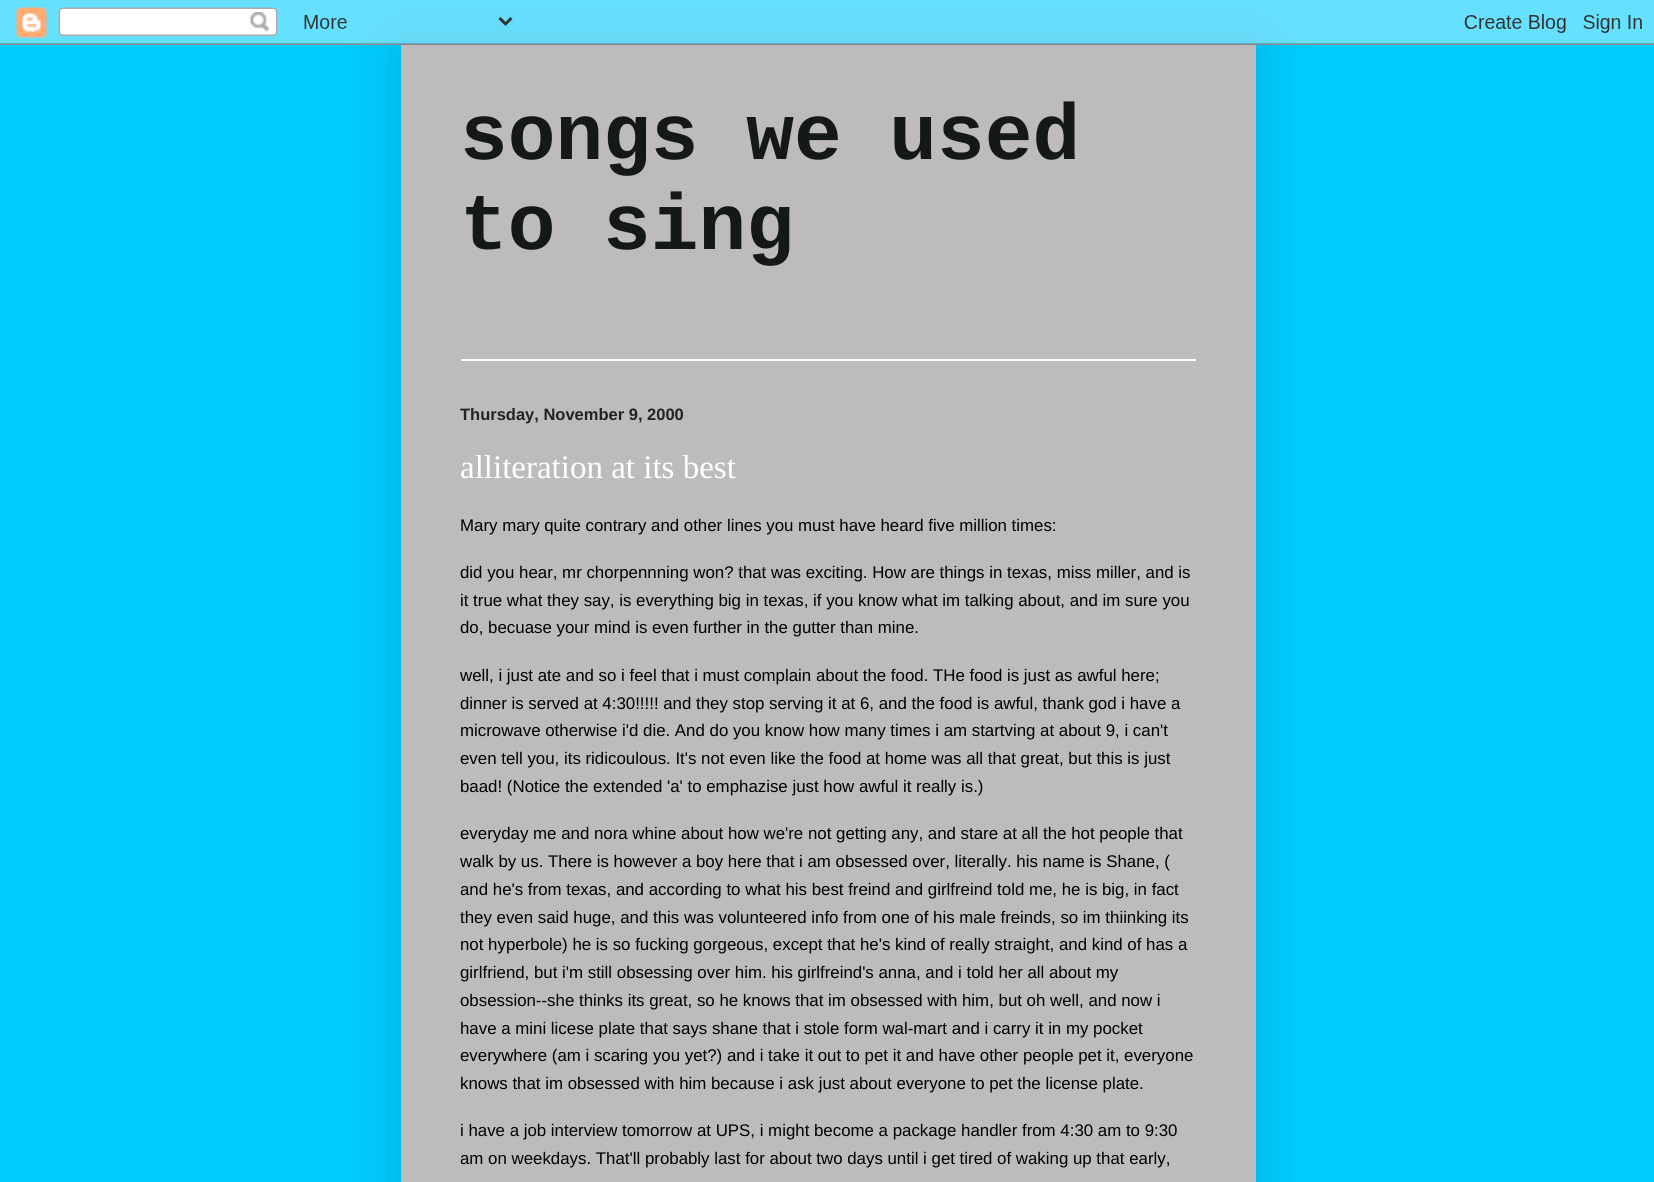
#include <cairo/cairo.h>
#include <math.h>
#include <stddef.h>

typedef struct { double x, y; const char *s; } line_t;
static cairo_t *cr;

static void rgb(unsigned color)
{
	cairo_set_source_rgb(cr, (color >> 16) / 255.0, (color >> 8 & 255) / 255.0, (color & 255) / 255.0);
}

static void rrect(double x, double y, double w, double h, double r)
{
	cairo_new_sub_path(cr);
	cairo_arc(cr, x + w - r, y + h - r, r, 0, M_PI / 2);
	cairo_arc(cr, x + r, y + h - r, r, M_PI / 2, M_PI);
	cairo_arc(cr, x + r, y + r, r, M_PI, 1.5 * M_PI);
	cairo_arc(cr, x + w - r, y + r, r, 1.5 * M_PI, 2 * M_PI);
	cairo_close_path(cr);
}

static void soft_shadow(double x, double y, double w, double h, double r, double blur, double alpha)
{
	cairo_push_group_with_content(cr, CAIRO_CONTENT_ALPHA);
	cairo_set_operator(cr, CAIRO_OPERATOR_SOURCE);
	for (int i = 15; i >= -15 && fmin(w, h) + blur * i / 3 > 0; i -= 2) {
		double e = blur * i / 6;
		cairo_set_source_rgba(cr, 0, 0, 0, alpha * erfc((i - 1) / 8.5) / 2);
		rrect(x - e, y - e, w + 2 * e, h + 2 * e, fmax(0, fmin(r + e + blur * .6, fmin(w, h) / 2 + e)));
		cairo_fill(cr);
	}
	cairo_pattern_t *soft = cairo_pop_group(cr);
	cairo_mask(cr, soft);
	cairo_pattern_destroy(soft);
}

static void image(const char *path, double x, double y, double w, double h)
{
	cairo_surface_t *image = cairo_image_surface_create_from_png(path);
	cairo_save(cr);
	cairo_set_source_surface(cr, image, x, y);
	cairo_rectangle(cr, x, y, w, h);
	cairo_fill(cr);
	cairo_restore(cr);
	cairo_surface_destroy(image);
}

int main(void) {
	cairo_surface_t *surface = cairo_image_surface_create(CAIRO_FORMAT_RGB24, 1654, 1182);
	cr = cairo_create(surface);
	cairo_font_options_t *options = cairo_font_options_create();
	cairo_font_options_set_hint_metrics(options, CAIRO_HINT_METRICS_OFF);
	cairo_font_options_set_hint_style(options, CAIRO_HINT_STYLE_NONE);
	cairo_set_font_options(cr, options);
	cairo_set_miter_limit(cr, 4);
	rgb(0x00ccff);
	cairo_paint(cr);
	rgb(0x000000);
	soft_shadow(401, 45, 855, 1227, 0, 30, 0.15);
	image("img/1.png", 0, 0, 1654, 45);
	rgb(0xbdbbbb);
	cairo_rectangle(cr, 401, 45, 855, 1137);
	cairo_fill(cr);
	rgb(0xffffff);
	cairo_rectangle(cr, 461, 359, 735, 2);
	cairo_fill(cr);
	cairo_select_font_face(cr, "Liberation Mono", CAIRO_FONT_SLANT_NORMAL, CAIRO_FONT_WEIGHT_BOLD);
	cairo_set_font_size(cr, 79.5);
	rgb(0x151819);
	cairo_move_to(cr, 460, 159);
	cairo_show_text(cr, "songs we used");
	cairo_move_to(cr, 460, 249);
	cairo_show_text(cr, "to sing");
	cairo_select_font_face(cr, "Liberation Sans", CAIRO_FONT_SLANT_NORMAL, CAIRO_FONT_WEIGHT_BOLD);
	cairo_set_font_size(cr, 16.5);
	rgb(0x222222);
	cairo_move_to(cr, 460, 420);
	cairo_show_text(cr, "Thursday, November 9, 2000");
	cairo_select_font_face(cr, "Liberation Serif", CAIRO_FONT_SLANT_NORMAL, CAIRO_FONT_WEIGHT_NORMAL);
	cairo_set_font_size(cr, 33);
	rgb(0xffffff);
	cairo_move_to(cr, 460, 478);
	cairo_show_text(cr, "alliteration at its best");
	cairo_select_font_face(cr, "Liberation Sans", CAIRO_FONT_SLANT_NORMAL, CAIRO_FONT_WEIGHT_NORMAL);
	cairo_set_font_size(cr, 16.85);
	rgb(0x000000);
	{
		static const line_t items[] = {
			{460, 531, "Mary mary quite contrary and other lines you must have heard five million times:"},
			{460, 578, "did you hear, mr chorpennning won? that was exciting. How are things in texas, miss miller, and is"},
			{460, 606, "it true what they say, is everything big in texas, if you know what im talking about, and im sure you"},
			{460, 633, "do, becuase your mind is even further in the gutter than mine."},
			{460, 681, "well, i just ate and so i feel that i must complain about the food. THe food is just as awful here;"},
			{460, 709, "dinner is served at 4:30!!!!! and they stop serving it at 6, and the food is awful, thank god i have a"},
			{460, 736, "microwave otherwise i'd die. And do you know how many times i am startving at about 9, i can't"},
			{460, 764, "even tell you, its ridicoulous. It's not even like the food at home was all that great, but this is just"},
			{460, 792, "baad! (Notice the extended 'a' to emphazise just how awful it really is.)"},
			{460, 839, "everyday me and nora whine about how we're not getting any, and stare at all the hot people that"},
			{460, 867, "walk by us. There is however a boy here that i am obsessed over, literally. his name is Shane, ("},
			{460, 895, "and he's from texas, and according to what his best freind and girlfreind told me, he is big, in fact"},
			{460, 923, "they even said huge, and this was volunteered info from one of his male freinds, so im thiinking its"},
			{460, 950, "not hyperbole) he is so fucking gorgeous, except that he's kind of really straight, and kind of has a"},
			{460, 978, "girlfriend, but i'm still obsessing over him. his girlfreind's anna, and i told her all about my"},
			{460, 1006, "obsession--she thinks its great, so he knows that im obsessed with him, but oh well, and now i"},
			{460, 1034, "have a mini licese plate that says shane that i stole form wal-mart and i carry it in my pocket"},
			{460, 1061, "everywhere (am i scaring you yet?) and i take it out to pet it and have other people pet it, everyone"},
			{460, 1089, "knows that im obsessed with him because i ask just about everyone to pet the license plate."},
			{460, 1136, "i have a job interview tomorrow at UPS, i might become a package handler from 4:30 am to 9:30"},
			{460, 1164, "am on weekdays. That'll probably last for about two days until i get tired of waking up that early,"},
		};
		for (size_t i = 0; i < sizeof items / sizeof *items; i++) {
			cairo_move_to(cr, items[i].x, items[i].y);
			cairo_show_text(cr, items[i].s);
		}
	}
	cairo_surface_write_to_png(surface, "page.png");
	cairo_font_options_destroy(options);
	cairo_destroy(cr);
	cairo_surface_destroy(surface);
	return 0;
}
